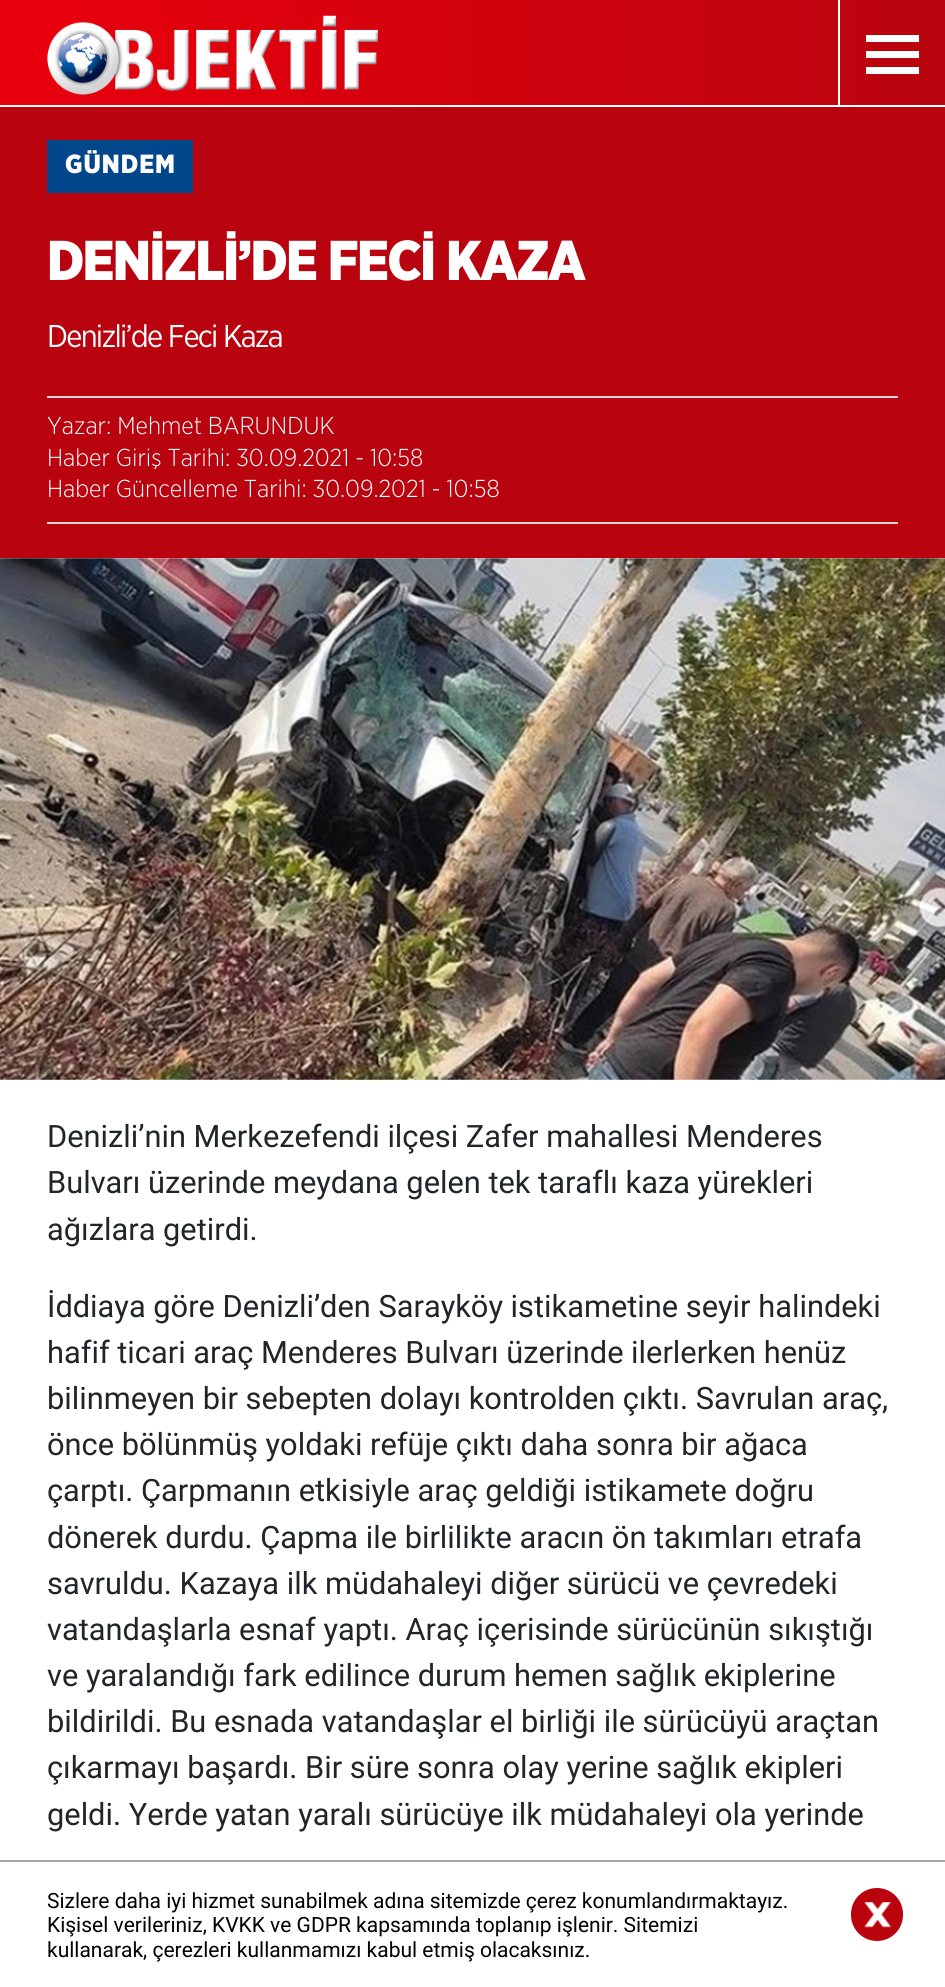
#include <cairo/cairo.h>
#include <math.h>
#include <stddef.h>

typedef struct { double x, y; const char *s; } line_t;
typedef struct { double x, y, w, h; unsigned color; } box_t;
static cairo_t *cr;

static void rgb(unsigned color)
{
	cairo_set_source_rgb(cr, (color >> 16) / 255.0, (color >> 8 & 255) / 255.0, (color & 255) / 255.0);
}

static void tracked(double x, double y, const char *s, double letter, double word)
{
	cairo_move_to(cr, x, y);
	while (*s) {
		char ch[5] = {0};
		int n = 0;
		do ch[n++] = *s++; while ((*s & 0xC0) == 0x80);
		cairo_show_text(cr, ch);
		cairo_rel_move_to(cr, letter + word * (*ch == ' '), 0);
	}
}

static void rrect(double x, double y, double w, double h, double r)
{
	cairo_new_sub_path(cr);
	cairo_arc(cr, x + w - r, y + h - r, r, 0, M_PI / 2);
	cairo_arc(cr, x + r, y + h - r, r, M_PI / 2, M_PI);
	cairo_arc(cr, x + r, y + r, r, M_PI, 1.5 * M_PI);
	cairo_arc(cr, x + w - r, y + r, r, 1.5 * M_PI, 2 * M_PI);
	cairo_close_path(cr);
}

static void image(const char *path, double x, double y, double w, double h)
{
	cairo_surface_t *image = cairo_image_surface_create_from_png(path);
	cairo_save(cr);
	cairo_set_source_surface(cr, image, x, y);
	cairo_rectangle(cr, x, y, w, h);
	cairo_fill(cr);
	cairo_restore(cr);
	cairo_surface_destroy(image);
}

int main(void) {
	cairo_surface_t *surface = cairo_image_surface_create(CAIRO_FORMAT_RGB24, 945, 1987);
	cr = cairo_create(surface);
	cairo_font_options_t *options = cairo_font_options_create();
	cairo_font_options_set_hint_metrics(options, CAIRO_HINT_METRICS_OFF);
	cairo_font_options_set_hint_style(options, CAIRO_HINT_STYLE_NONE);
	cairo_set_font_options(cr, options);
	cairo_set_miter_limit(cr, 4);
	cairo_pattern_t *gradient;
	rgb(0xffffff);
	cairo_paint(cr);
	gradient = cairo_pattern_create_linear(0, 53, 945, 52);
	cairo_pattern_add_color_stop_rgba(gradient, 0, 0.918, 0, 0.051, 1);
	cairo_pattern_add_color_stop_rgba(gradient, 1, 0.725, 0.016, 0.055, 1);
	cairo_set_source(cr, gradient);
	cairo_pattern_destroy(gradient);
	cairo_rectangle(cr, 0, 0, 945, 105);
	cairo_fill(cr);
	image("img/1.png", 47, 15, 331, 80);
	{
		static const box_t items[] = {
			{838, 0, 2, 105, 0xffffff},
			{866, 35, 53, 7, 0xffffff},
			{866, 51, 53, 7, 0xffffff},
			{866, 67, 53, 7, 0xffffff},
			{0, 107, 945, 451, 0xb9030f},
			{47, 140, 146, 53, 0x02478b},
			{47, 396, 851, 2, 0xd5d5d5},
			{47, 522, 851, 2, 0xd5d5d5},
		};
		for (size_t i = 0; i < sizeof items / sizeof *items; i++) {
			rgb(items[i].color);
			cairo_rectangle(cr, items[i].x, items[i].y, items[i].w, items[i].h);
			cairo_fill(cr);
		}
	}
	image("img/2.png", 0, 558, 945, 522);
	rgb(0xa5a5a5);
	cairo_rectangle(cr, 0, 1860, 945, 2);
	cairo_fill(cr);
	rgb(0xb9040e);
	rrect(851, 1888, 52, 53, 26);
	cairo_fill(cr);
	image("img/3.png", 864, 1902, 28, 26);
	cairo_select_font_face(cr, "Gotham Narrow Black", CAIRO_FONT_SLANT_NORMAL, CAIRO_FONT_WEIGHT_NORMAL);
	cairo_set_font_size(cr, 26.25);
	rgb(0xffffff);
	tracked(65, 173, "GÜNDEM", 1, 0);
	cairo_set_font_size(cr, 56);
	tracked(47, 280, "DENİZLİ’DE FECİ KAZA", -1.75, 0);
	cairo_select_font_face(cr, "Gotham Narrow", CAIRO_FONT_SLANT_NORMAL, CAIRO_FONT_WEIGHT_NORMAL);
	cairo_set_font_size(cr, 31.5);
	tracked(47, 347, "Denizli’de Feci Kaza", -1.75, 0);
	cairo_select_font_face(cr, "Gotham Narrow Light", CAIRO_FONT_SLANT_NORMAL, CAIRO_FONT_WEIGHT_NORMAL);
	cairo_set_font_size(cr, 24.5);
	{
		static const line_t items[] = {
			{47, 434, "Yazar: Mehmet BARUNDUK"},
			{47, 466, "Haber Giriş Tarihi: 30.09.2021 - 10:58"},
			{47, 497, "Haber Güncelleme Tarihi: 30.09.2021 - 10:58"},
		};
		for (size_t i = 0; i < sizeof items / sizeof *items; i++) {
			cairo_move_to(cr, items[i].x, items[i].y);
			cairo_show_text(cr, items[i].s);
		}
	}
	cairo_select_font_face(cr, "Roboto", CAIRO_FONT_SLANT_NORMAL, CAIRO_FONT_WEIGHT_NORMAL);
	cairo_set_font_size(cr, 30.8);
	rgb(0x212529);
	{
		static const line_t items[] = {
			{47, 1147, "Denizli’nin Merkezefendi ilçesi Zafer mahallesi Menderes"},
			{47, 1193, "Bulvarı üzerinde meydana gelen tek taraflı kaza yürekleri"},
			{47, 1240, "ağızlara getirdi."},
			{47, 1317, "İddiaya göre Denizli’den Sarayköy istikametine seyir halindeki"},
			{47, 1363, "hafif ticari araç Menderes Bulvarı üzerinde ilerlerken henüz"},
			{47, 1409, "bilinmeyen bir sebepten dolayı kontrolden çıktı. Savrulan araç,"},
			{47, 1455, "önce bölünmüş yoldaki refüje çıktı daha sonra bir ağaca"},
			{47, 1501, "çarptı. Çarpmanın etkisiyle araç geldiği istikamete doğru"},
			{47, 1548, "dönerek durdu. Çapma ile birlilikte aracın ön takımları etrafa"},
			{47, 1594, "savruldu. Kazaya ilk müdahaleyi diğer sürücü ve çevredeki"},
			{47, 1640, "vatandaşlarla esnaf yaptı. Araç içerisinde sürücünün sıkıştığı"},
			{47, 1686, "ve yaralandığı fark edilince durum hemen sağlık ekiplerine"},
			{47, 1732, "bildirildi. Bu esnada vatandaşlar el birliği ile sürücüyü araçtan"},
			{47, 1778, "çıkarmayı başardı. Bir süre sonra olay yerine sağlık ekipleri"},
			{47, 1825, "geldi. Yerde yatan yaralı sürücüye ilk müdahaleyi ola yerinde"},
		};
		for (size_t i = 0; i < sizeof items / sizeof *items; i++) {
			cairo_move_to(cr, items[i].x, items[i].y);
			cairo_show_text(cr, items[i].s);
		}
	}
	cairo_set_font_size(cr, 21);
	rgb(0x000000);
	{
		static const line_t items[] = {
			{47, 1908, "Sizlere daha iyi hizmet sunabilmek adına sitemizde çerez konumlandırmaktayız."},
			{47, 1932, "Kişisel verileriniz, KVKK ve GDPR kapsamında toplanıp işlenir. Sitemizi"},
			{47, 1957, "kullanarak, çerezleri kullanmamızı kabul etmiş olacaksınız."},
		};
		for (size_t i = 0; i < sizeof items / sizeof *items; i++) {
			cairo_move_to(cr, items[i].x, items[i].y);
			cairo_show_text(cr, items[i].s);
		}
	}
	cairo_surface_write_to_png(surface, "page.png");
	cairo_font_options_destroy(options);
	cairo_destroy(cr);
	cairo_surface_destroy(surface);
	return 0;
}
